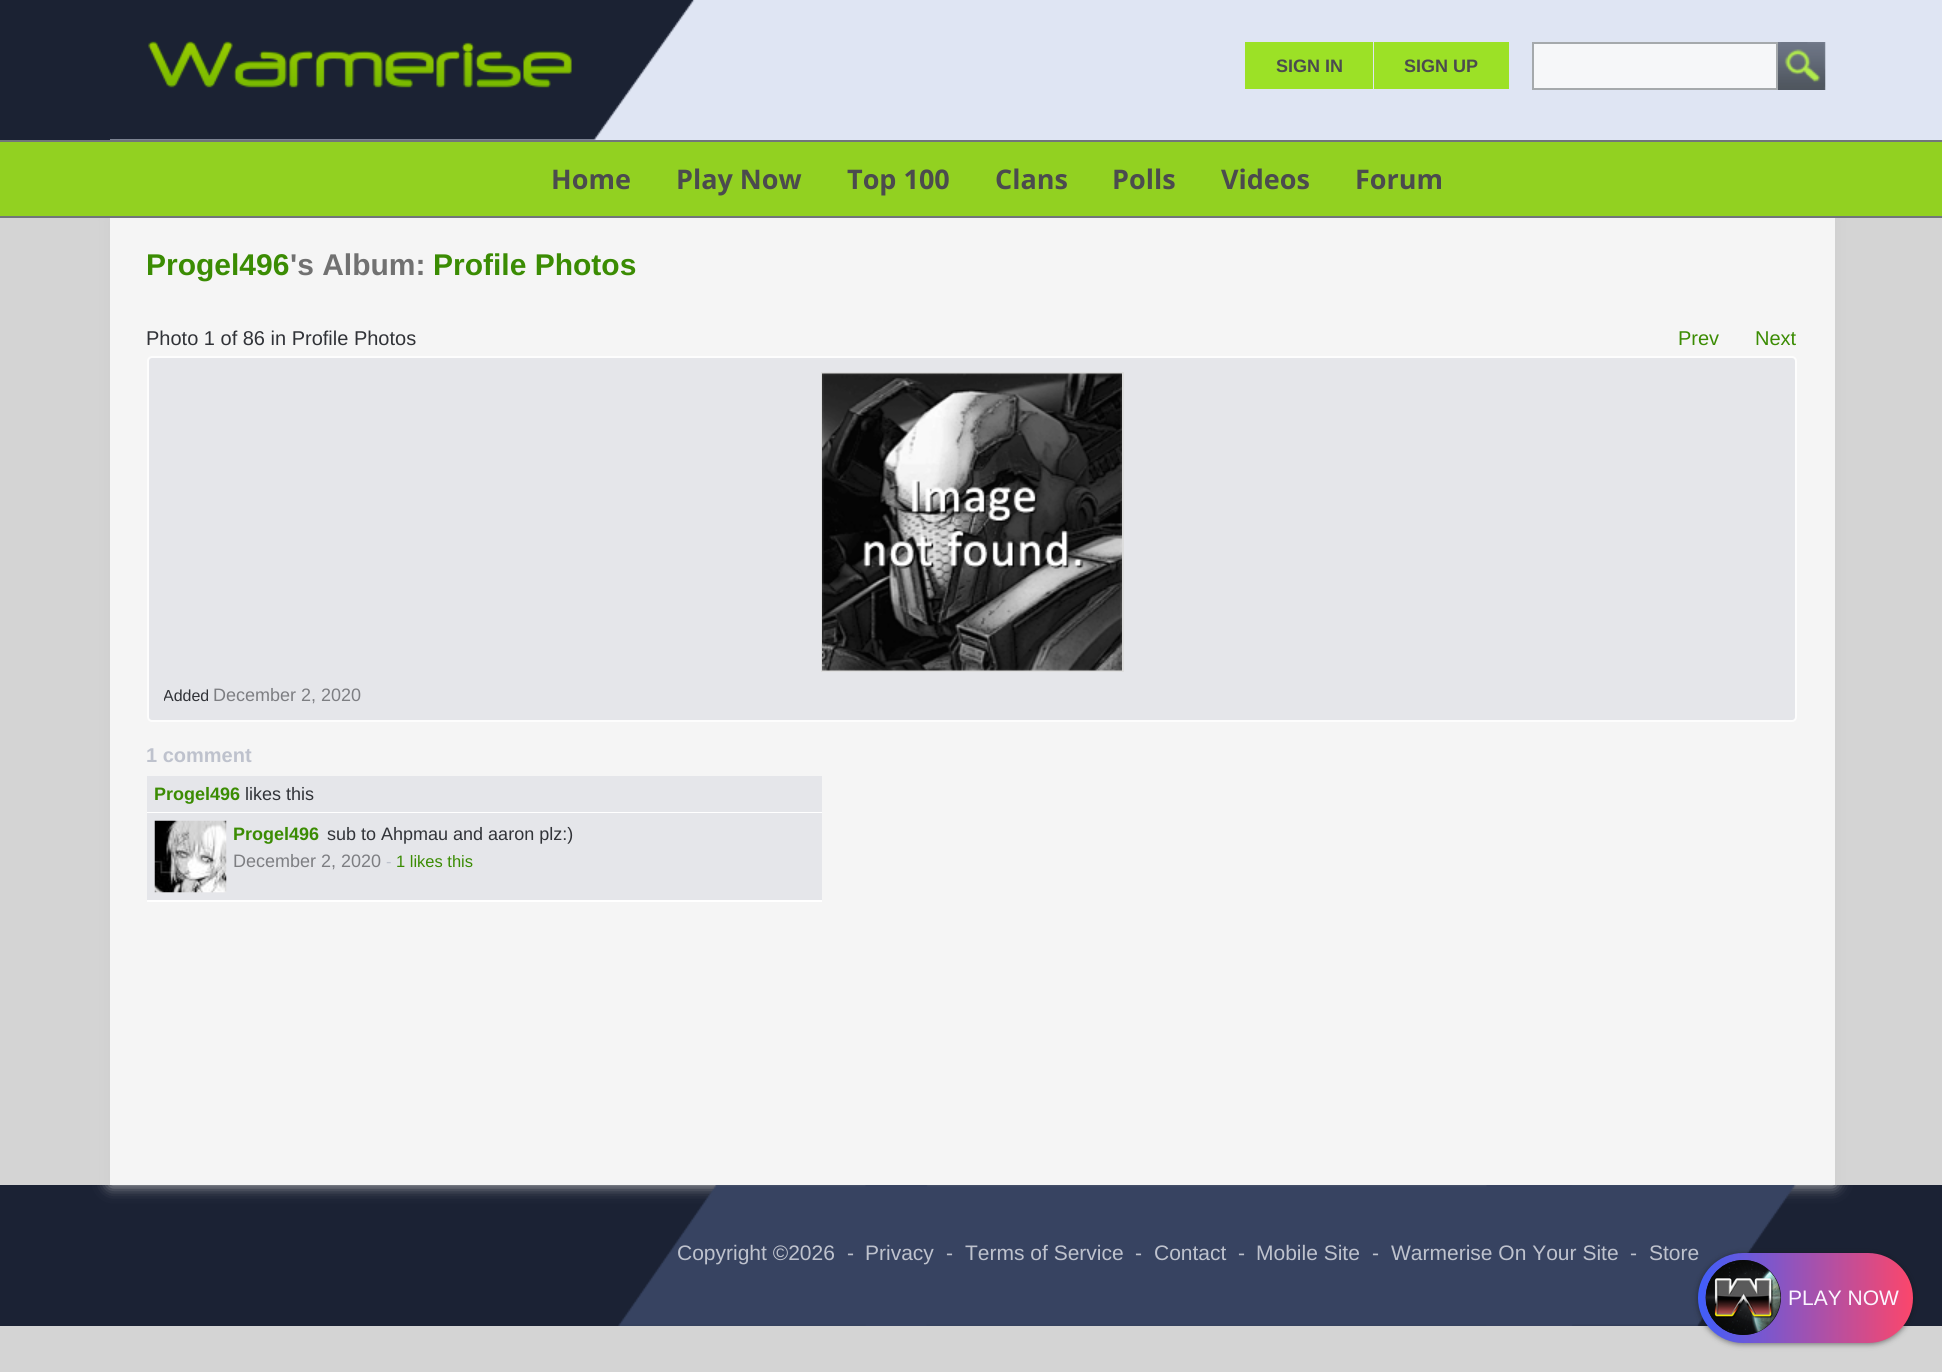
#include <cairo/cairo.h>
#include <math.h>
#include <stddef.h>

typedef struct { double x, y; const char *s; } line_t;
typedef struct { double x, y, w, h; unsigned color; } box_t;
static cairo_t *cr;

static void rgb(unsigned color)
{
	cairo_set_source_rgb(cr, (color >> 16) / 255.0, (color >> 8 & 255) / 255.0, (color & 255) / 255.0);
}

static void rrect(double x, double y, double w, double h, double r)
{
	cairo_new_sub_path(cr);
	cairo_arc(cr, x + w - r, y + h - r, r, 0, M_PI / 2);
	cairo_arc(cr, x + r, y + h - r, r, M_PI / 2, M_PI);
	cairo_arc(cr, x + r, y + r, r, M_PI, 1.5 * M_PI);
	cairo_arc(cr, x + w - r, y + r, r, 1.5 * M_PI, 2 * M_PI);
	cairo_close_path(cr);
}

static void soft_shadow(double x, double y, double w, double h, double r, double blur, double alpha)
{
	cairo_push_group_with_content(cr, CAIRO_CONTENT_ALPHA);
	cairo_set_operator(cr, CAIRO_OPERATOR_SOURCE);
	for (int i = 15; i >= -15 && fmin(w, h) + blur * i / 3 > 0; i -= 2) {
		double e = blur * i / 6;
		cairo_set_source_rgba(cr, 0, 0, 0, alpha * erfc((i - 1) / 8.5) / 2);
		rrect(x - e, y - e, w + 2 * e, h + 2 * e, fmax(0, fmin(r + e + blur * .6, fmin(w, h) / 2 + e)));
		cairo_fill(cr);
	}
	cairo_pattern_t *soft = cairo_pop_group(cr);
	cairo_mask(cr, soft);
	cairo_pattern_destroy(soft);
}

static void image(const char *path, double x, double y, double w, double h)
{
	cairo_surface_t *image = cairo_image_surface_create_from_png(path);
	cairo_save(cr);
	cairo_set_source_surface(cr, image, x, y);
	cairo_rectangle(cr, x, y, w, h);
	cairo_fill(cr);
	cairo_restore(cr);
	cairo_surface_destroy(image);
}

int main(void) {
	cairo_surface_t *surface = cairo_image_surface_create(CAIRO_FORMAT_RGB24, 1942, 1372);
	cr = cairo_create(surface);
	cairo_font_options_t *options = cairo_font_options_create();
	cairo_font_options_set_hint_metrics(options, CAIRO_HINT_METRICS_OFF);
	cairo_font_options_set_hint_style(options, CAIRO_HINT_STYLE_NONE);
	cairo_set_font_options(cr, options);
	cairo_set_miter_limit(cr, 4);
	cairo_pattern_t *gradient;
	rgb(0xd4d4d4);
	cairo_paint(cr);
	rgb(0xdfe5f3);
	cairo_rectangle(cr, 110, 0, 1832, 140);
	cairo_fill(cr);
	rgb(0x1b2233);
	cairo_rectangle(cr, 0, 0, 110, 140);
	cairo_fill(cr);
	image("img/1.png", 110, 0, 585, 140);
	image("img/2.png", 148, 41, 424, 47);
	rgb(0x9ce126);
	cairo_rectangle(cr, 1245, 42, 128, 47);
	cairo_fill(cr);
	cairo_rectangle(cr, 1374, 42, 135, 47);
	cairo_fill(cr);
	image("img/3.png", 1778, 42, 48, 48);
	rgb(0xf6f7f9);
	cairo_rectangle(cr, 1533, 43, 244, 46);
	cairo_fill_preserve(cr);
	rgb(0xa5a9ac);
	cairo_stroke(cr);
	rgb(0x1b2234);
	cairo_rectangle(cr, 0, 1185, 1942, 141);
	cairo_fill(cr);
	rgb(0xcdcdcd);
	soft_shadow(110, 218, 1725, 967, 0, 7.5, 1);
	{
		static const box_t items[] = {
			{0, 142, 1942, 74, 0x92d121},
			{0, 140, 1942, 2, 0x71767a},
			{0, 216, 1942, 2, 0x71767a},
		};
		for (size_t i = 0; i < sizeof items / sizeof *items; i++) {
			rgb(items[i].color);
			cairo_rectangle(cr, items[i].x, items[i].y, items[i].w, items[i].h);
			cairo_fill(cr);
		}
	}
	image("img/7.png", 618, 1185, 1178, 141);
	rgb(0x101011);
	soft_shadow(1698, 1254, 215, 90, 45, 3, 0.5);
	gradient = cairo_pattern_create_linear(1698, 1298, 1913, 1298);
	cairo_pattern_add_color_stop_rgba(gradient, 0, 0.247, 0.369, 0.984, 1);
	cairo_pattern_add_color_stop_rgba(gradient, 1, 0.988, 0.275, 0.42, 1);
	cairo_set_source(cr, gradient);
	cairo_pattern_destroy(gradient);
	rrect(1698, 1253, 215, 90, 45);
	cairo_fill(cr);
	rgb(0x0e0e0f);
	cairo_arc(cr, 1743.5, 1297.5, 37.5, 0, 2 * M_PI);
	cairo_fill(cr);
	image("img/4.png", 1705, 1260, 76, 75);
	rgb(0xf5f5f5);
	cairo_rectangle(cr, 110, 218, 1725, 967);
	cairo_fill(cr);
	rgb(0xe5e6ea);
	rrect(148, 357, 1648, 364, 4);
	cairo_fill_preserve(cr);
	rgb(0xfdfdfd);
	cairo_stroke(cr);
	cairo_rectangle(cr, 822, 373, 301, 298);
	rgb(0xdddddd);
	cairo_stroke(cr);
	image("img/5.png", 822, 373, 300, 298);
	{
		static const box_t items[] = {
			{147, 776, 675, 36, 0xe5e6ea},
			{147, 812, 675, 1, 0xffffff},
			{147, 813, 675, 87, 0xe5e6ea},
			{147, 900, 675, 2, 0xffffff},
		};
		for (size_t i = 0; i < sizeof items / sizeof *items; i++) {
			rgb(items[i].color);
			cairo_rectangle(cr, items[i].x, items[i].y, items[i].w, items[i].h);
			cairo_fill(cr);
		}
	}
	image("img/6.png", 154, 820, 73, 73);
	cairo_select_font_face(cr, "Liberation Sans", CAIRO_FONT_SLANT_NORMAL, CAIRO_FONT_WEIGHT_BOLD);
	cairo_set_font_size(cr, 18);
	rgb(0x4b4b4e);
	cairo_move_to(cr, 1276, 72);
	cairo_show_text(cr, "SIGN IN");
	cairo_move_to(cr, 1404, 72);
	cairo_show_text(cr, "SIGN UP");
	cairo_select_font_face(cr, "Open Sans", CAIRO_FONT_SLANT_NORMAL, CAIRO_FONT_WEIGHT_BOLD);
	cairo_set_font_size(cr, 27);
	{
		static const line_t items[] = {
			{551, 189, "Home"},
			{676, 189, "Play Now"},
			{847, 189, "Top 100"},
			{995, 189, "Clans"},
			{1112, 189, "Polls"},
			{1221, 189, "Videos"},
			{1355, 189, "Forum"},
		};
		for (size_t i = 0; i < sizeof items / sizeof *items; i++) {
			cairo_move_to(cr, items[i].x, items[i].y);
			cairo_show_text(cr, items[i].s);
		}
	}
	cairo_select_font_face(cr, "Liberation Sans", CAIRO_FONT_SLANT_NORMAL, CAIRO_FONT_WEIGHT_NORMAL);
	cairo_set_font_size(cr, 21);
	rgb(0xfbf5ff);
	cairo_move_to(cr, 1788, 1305);
	cairo_show_text(cr, "PLAY NOW");
	cairo_select_font_face(cr, "Liberation Sans", CAIRO_FONT_SLANT_NORMAL, CAIRO_FONT_WEIGHT_BOLD);
	cairo_set_font_size(cr, 30);
	rgb(0x3b8c03);
	cairo_move_to(cr, 146, 275);
	cairo_show_text(cr, "Progel496");
	rgb(0x717171);
	cairo_move_to(cr, 290, 275);
	cairo_show_text(cr, "'s Album:");
	rgb(0x3b8c03);
	cairo_move_to(cr, 433, 275);
	cairo_show_text(cr, "Profile Photos");
	cairo_select_font_face(cr, "Liberation Sans", CAIRO_FONT_SLANT_NORMAL, CAIRO_FONT_WEIGHT_NORMAL);
	cairo_set_font_size(cr, 20);
	rgb(0x313338);
	cairo_move_to(cr, 146, 345);
	cairo_show_text(cr, "Photo 1 of 86 in Profile Photos");
	rgb(0x3b8c03);
	cairo_move_to(cr, 1678, 345);
	cairo_show_text(cr, "Prev");
	cairo_move_to(cr, 1755, 345);
	cairo_show_text(cr, "Next");
	cairo_save(cr);
	cairo_rectangle(cr, 164, 684, 1617, 21);
	cairo_clip(cr);
	cairo_set_font_size(cr, 16);
	rgb(0x313338);
	cairo_move_to(cr, 163, 701);
	cairo_show_text(cr, "Added");
	cairo_restore(cr);
	cairo_set_font_size(cr, 18);
	rgb(0x7d7e82);
	cairo_move_to(cr, 213, 701);
	cairo_show_text(cr, "December 2, 2020");
	cairo_select_font_face(cr, "Liberation Sans", CAIRO_FONT_SLANT_NORMAL, CAIRO_FONT_WEIGHT_BOLD);
	cairo_set_font_size(cr, 20);
	rgb(0xbec2cd);
	cairo_move_to(cr, 146, 762);
	cairo_show_text(cr, "1 comment");
	cairo_set_font_size(cr, 18);
	rgb(0x3b8c03);
	cairo_move_to(cr, 154, 800);
	cairo_show_text(cr, "Progel496");
	cairo_select_font_face(cr, "Liberation Sans", CAIRO_FONT_SLANT_NORMAL, CAIRO_FONT_WEIGHT_NORMAL);
	rgb(0x313338);
	cairo_move_to(cr, 245, 800);
	cairo_show_text(cr, "likes this");
	cairo_select_font_face(cr, "Liberation Sans", CAIRO_FONT_SLANT_NORMAL, CAIRO_FONT_WEIGHT_BOLD);
	rgb(0x3b8c03);
	cairo_move_to(cr, 233, 840);
	cairo_show_text(cr, "Progel496");
	cairo_select_font_face(cr, "Liberation Sans", CAIRO_FONT_SLANT_NORMAL, CAIRO_FONT_WEIGHT_NORMAL);
	rgb(0x313338);
	cairo_move_to(cr, 327, 840);
	cairo_show_text(cr, "sub to Ahpmau and aaron plz:)");
	rgb(0x7d7e82);
	cairo_move_to(cr, 233, 867);
	cairo_show_text(cr, "December 2, 2020");
	cairo_set_font_size(cr, 16.5);
	rgb(0xbec2cd);
	cairo_move_to(cr, 386, 867);
	cairo_show_text(cr, "-");
	rgb(0x3b8c03);
	cairo_move_to(cr, 396, 867);
	cairo_show_text(cr, "1 likes this");
	cairo_set_font_size(cr, 21);
	rgb(0xbec2cd);
	{
		static const line_t items[] = {
			{677, 1260, "Copyright ©2026"},
			{847, 1260, "-"},
			{865, 1260, "Privacy"},
			{946, 1260, "-"},
			{965, 1260, "Terms of Service"},
			{1135, 1260, "-"},
			{1154, 1260, "Contact"},
			{1238, 1260, "-"},
			{1256, 1260, "Mobile Site"},
			{1372, 1260, "-"},
			{1391, 1260, "Warmerise On Your Site"},
			{1630, 1260, "-"},
			{1649, 1260, "Store"},
		};
		for (size_t i = 0; i < sizeof items / sizeof *items; i++) {
			cairo_move_to(cr, items[i].x, items[i].y);
			cairo_show_text(cr, items[i].s);
		}
	}
	cairo_surface_write_to_png(surface, "page.png");
	cairo_font_options_destroy(options);
	cairo_destroy(cr);
	cairo_surface_destroy(surface);
	return 0;
}
